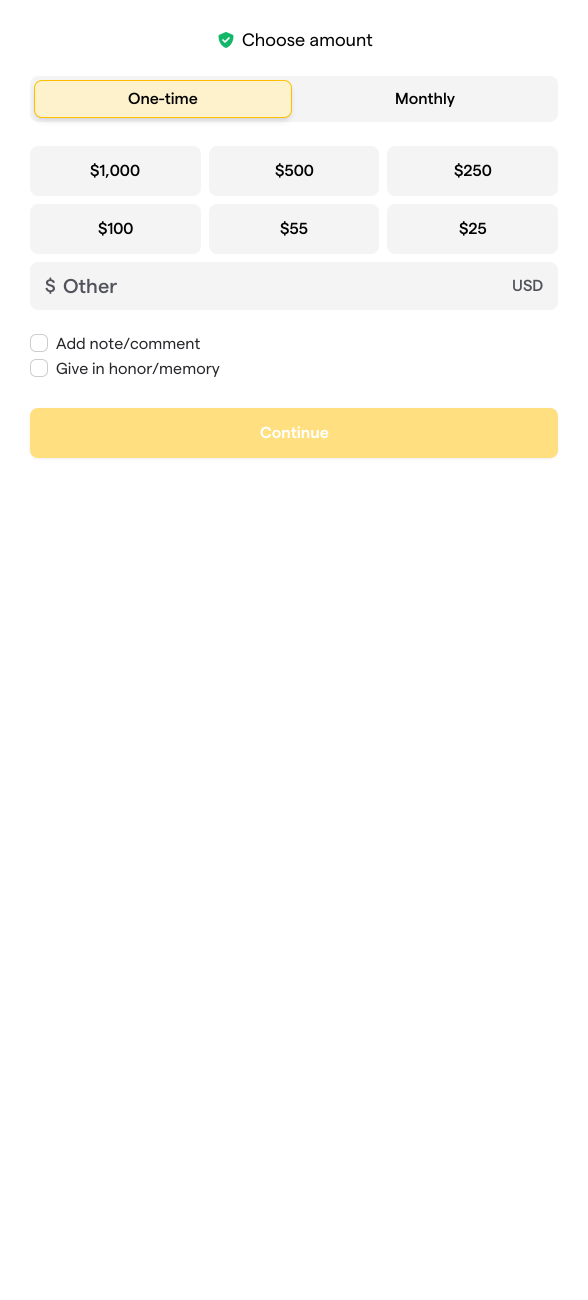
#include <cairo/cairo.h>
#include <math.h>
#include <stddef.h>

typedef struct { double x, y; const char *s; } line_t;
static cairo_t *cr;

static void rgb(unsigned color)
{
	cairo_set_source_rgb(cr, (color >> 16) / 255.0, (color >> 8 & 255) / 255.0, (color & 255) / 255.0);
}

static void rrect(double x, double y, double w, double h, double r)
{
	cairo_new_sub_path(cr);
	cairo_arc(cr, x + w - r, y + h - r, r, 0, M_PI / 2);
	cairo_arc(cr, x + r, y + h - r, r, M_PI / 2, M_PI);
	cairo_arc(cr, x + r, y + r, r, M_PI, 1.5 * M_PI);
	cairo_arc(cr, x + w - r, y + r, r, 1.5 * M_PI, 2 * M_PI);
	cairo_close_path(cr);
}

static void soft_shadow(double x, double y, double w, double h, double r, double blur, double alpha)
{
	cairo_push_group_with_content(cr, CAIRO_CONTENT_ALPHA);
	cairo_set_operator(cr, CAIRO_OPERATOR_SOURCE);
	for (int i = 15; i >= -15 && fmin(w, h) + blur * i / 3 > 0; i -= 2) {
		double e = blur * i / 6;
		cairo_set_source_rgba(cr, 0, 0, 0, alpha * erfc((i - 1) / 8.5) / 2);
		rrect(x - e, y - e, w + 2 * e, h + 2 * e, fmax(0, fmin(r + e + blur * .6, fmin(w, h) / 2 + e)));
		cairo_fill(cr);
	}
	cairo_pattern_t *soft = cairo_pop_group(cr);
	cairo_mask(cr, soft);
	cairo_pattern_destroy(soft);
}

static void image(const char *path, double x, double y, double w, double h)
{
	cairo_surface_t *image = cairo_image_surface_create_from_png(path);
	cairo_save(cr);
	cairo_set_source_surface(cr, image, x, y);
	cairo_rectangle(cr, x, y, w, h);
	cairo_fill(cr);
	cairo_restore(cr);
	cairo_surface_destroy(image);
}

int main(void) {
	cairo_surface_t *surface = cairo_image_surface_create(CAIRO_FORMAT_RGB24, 588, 1300);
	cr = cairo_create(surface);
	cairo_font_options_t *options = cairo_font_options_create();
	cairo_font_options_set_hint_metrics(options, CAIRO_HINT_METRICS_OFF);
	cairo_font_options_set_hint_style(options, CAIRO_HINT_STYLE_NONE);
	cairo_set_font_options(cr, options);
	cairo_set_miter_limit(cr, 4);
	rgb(0xffffff);
	cairo_paint(cr);
	image("img/1.png", 218, 32, 16, 16);
	rgb(0xf4f4f5);
	rrect(30, 76, 528, 46, 8);
	cairo_fill(cr);
	rgb(0x000000);
	soft_shadow(36, 84, 254, 34, 6, 2, 0.1);
	soft_shadow(35, 85, 256, 36, 7, 3, 0.1);
	rgb(0xfef2cc);
	rrect(34.5, 80.5, 257, 37, 7.5);
	cairo_fill_preserve(cr);
	rgb(0xffbf00);
	cairo_set_line_width(cr, 1);
	cairo_stroke(cr);
	rgb(0xf4f4f5);
	rrect(30.5, 146.5, 170, 49, 7.5);
	cairo_fill_preserve(cr);
	cairo_stroke(cr);
	rrect(209.5, 146.5, 169, 49, 7.5);
	cairo_fill_preserve(cr);
	cairo_stroke(cr);
	rrect(387.5, 146.5, 170, 49, 7.5);
	cairo_fill_preserve(cr);
	cairo_stroke(cr);
	rrect(30.5, 204.5, 170, 49, 7.5);
	cairo_fill_preserve(cr);
	cairo_stroke(cr);
	rrect(209.5, 204.5, 169, 49, 7.5);
	cairo_fill_preserve(cr);
	cairo_stroke(cr);
	rrect(387.5, 204.5, 170, 49, 7.5);
	cairo_fill_preserve(cr);
	cairo_stroke(cr);
	rrect(30.5, 262.5, 527, 47, 7.5);
	cairo_fill_preserve(cr);
	cairo_stroke(cr);
	rrect(30.5, 334.5, 17, 17, 5.5);
	rgb(0xcccccc);
	cairo_stroke(cr);
	rrect(30.5, 359.5, 17, 17, 5.5);
	cairo_stroke(cr);
	rgb(0x808080);
	soft_shadow(31, 410, 526, 48, 7, 1, 0.1);
	soft_shadow(30, 409, 528, 50, 8, 1.5, 0.1);
	rgb(0xffdf80);
	rrect(30, 408, 528, 50, 8);
	cairo_fill(cr);
	cairo_select_font_face(cr, "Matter", CAIRO_FONT_SLANT_NORMAL, CAIRO_FONT_WEIGHT_NORMAL);
	cairo_set_font_size(cr, 18);
	rgb(0x000000);
	cairo_move_to(cr, 242, 46);
	cairo_show_text(cr, "Choose amount");
	cairo_select_font_face(cr, "Matter Medium", CAIRO_FONT_SLANT_NORMAL, CAIRO_FONT_WEIGHT_NORMAL);
	cairo_set_font_size(cr, 16);
	{
		static const line_t items[] = {
			{128, 104, "One-time"},
			{395, 104, "Monthly"},
			{90, 176, "$1,000"},
			{275, 176, "$500"},
			{454, 176, "$250"},
			{98, 234, "$100"},
			{280, 234, "$55"},
			{459, 234, "$25"},
		};
		for (size_t i = 0; i < sizeof items / sizeof *items; i++) {
			cairo_move_to(cr, items[i].x, items[i].y);
			cairo_show_text(cr, items[i].s);
		}
	}
	cairo_set_font_size(cr, 18);
	rgb(0x51525c);
	cairo_move_to(cr, 45, 292);
	cairo_show_text(cr, "$");
	cairo_set_font_size(cr, 20);
	cairo_move_to(cr, 63, 293);
	cairo_show_text(cr, "Other");
	cairo_set_font_size(cr, 16);
	cairo_move_to(cr, 512, 291);
	cairo_show_text(cr, "USD");
	cairo_select_font_face(cr, "Matter", CAIRO_FONT_SLANT_NORMAL, CAIRO_FONT_WEIGHT_NORMAL);
	rgb(0x26272b);
	cairo_move_to(cr, 56, 349);
	cairo_show_text(cr, "Add note/comment");
	cairo_move_to(cr, 56, 374);
	cairo_show_text(cr, "Give in honor/memory");
	cairo_select_font_face(cr, "Matter SemiBold", CAIRO_FONT_SLANT_NORMAL, CAIRO_FONT_WEIGHT_NORMAL);
	rgb(0xffffff);
	cairo_move_to(cr, 260, 438);
	cairo_show_text(cr, "Continue");
	cairo_surface_write_to_png(surface, "page.png");
	cairo_font_options_destroy(options);
	cairo_destroy(cr);
	cairo_surface_destroy(surface);
	return 0;
}
